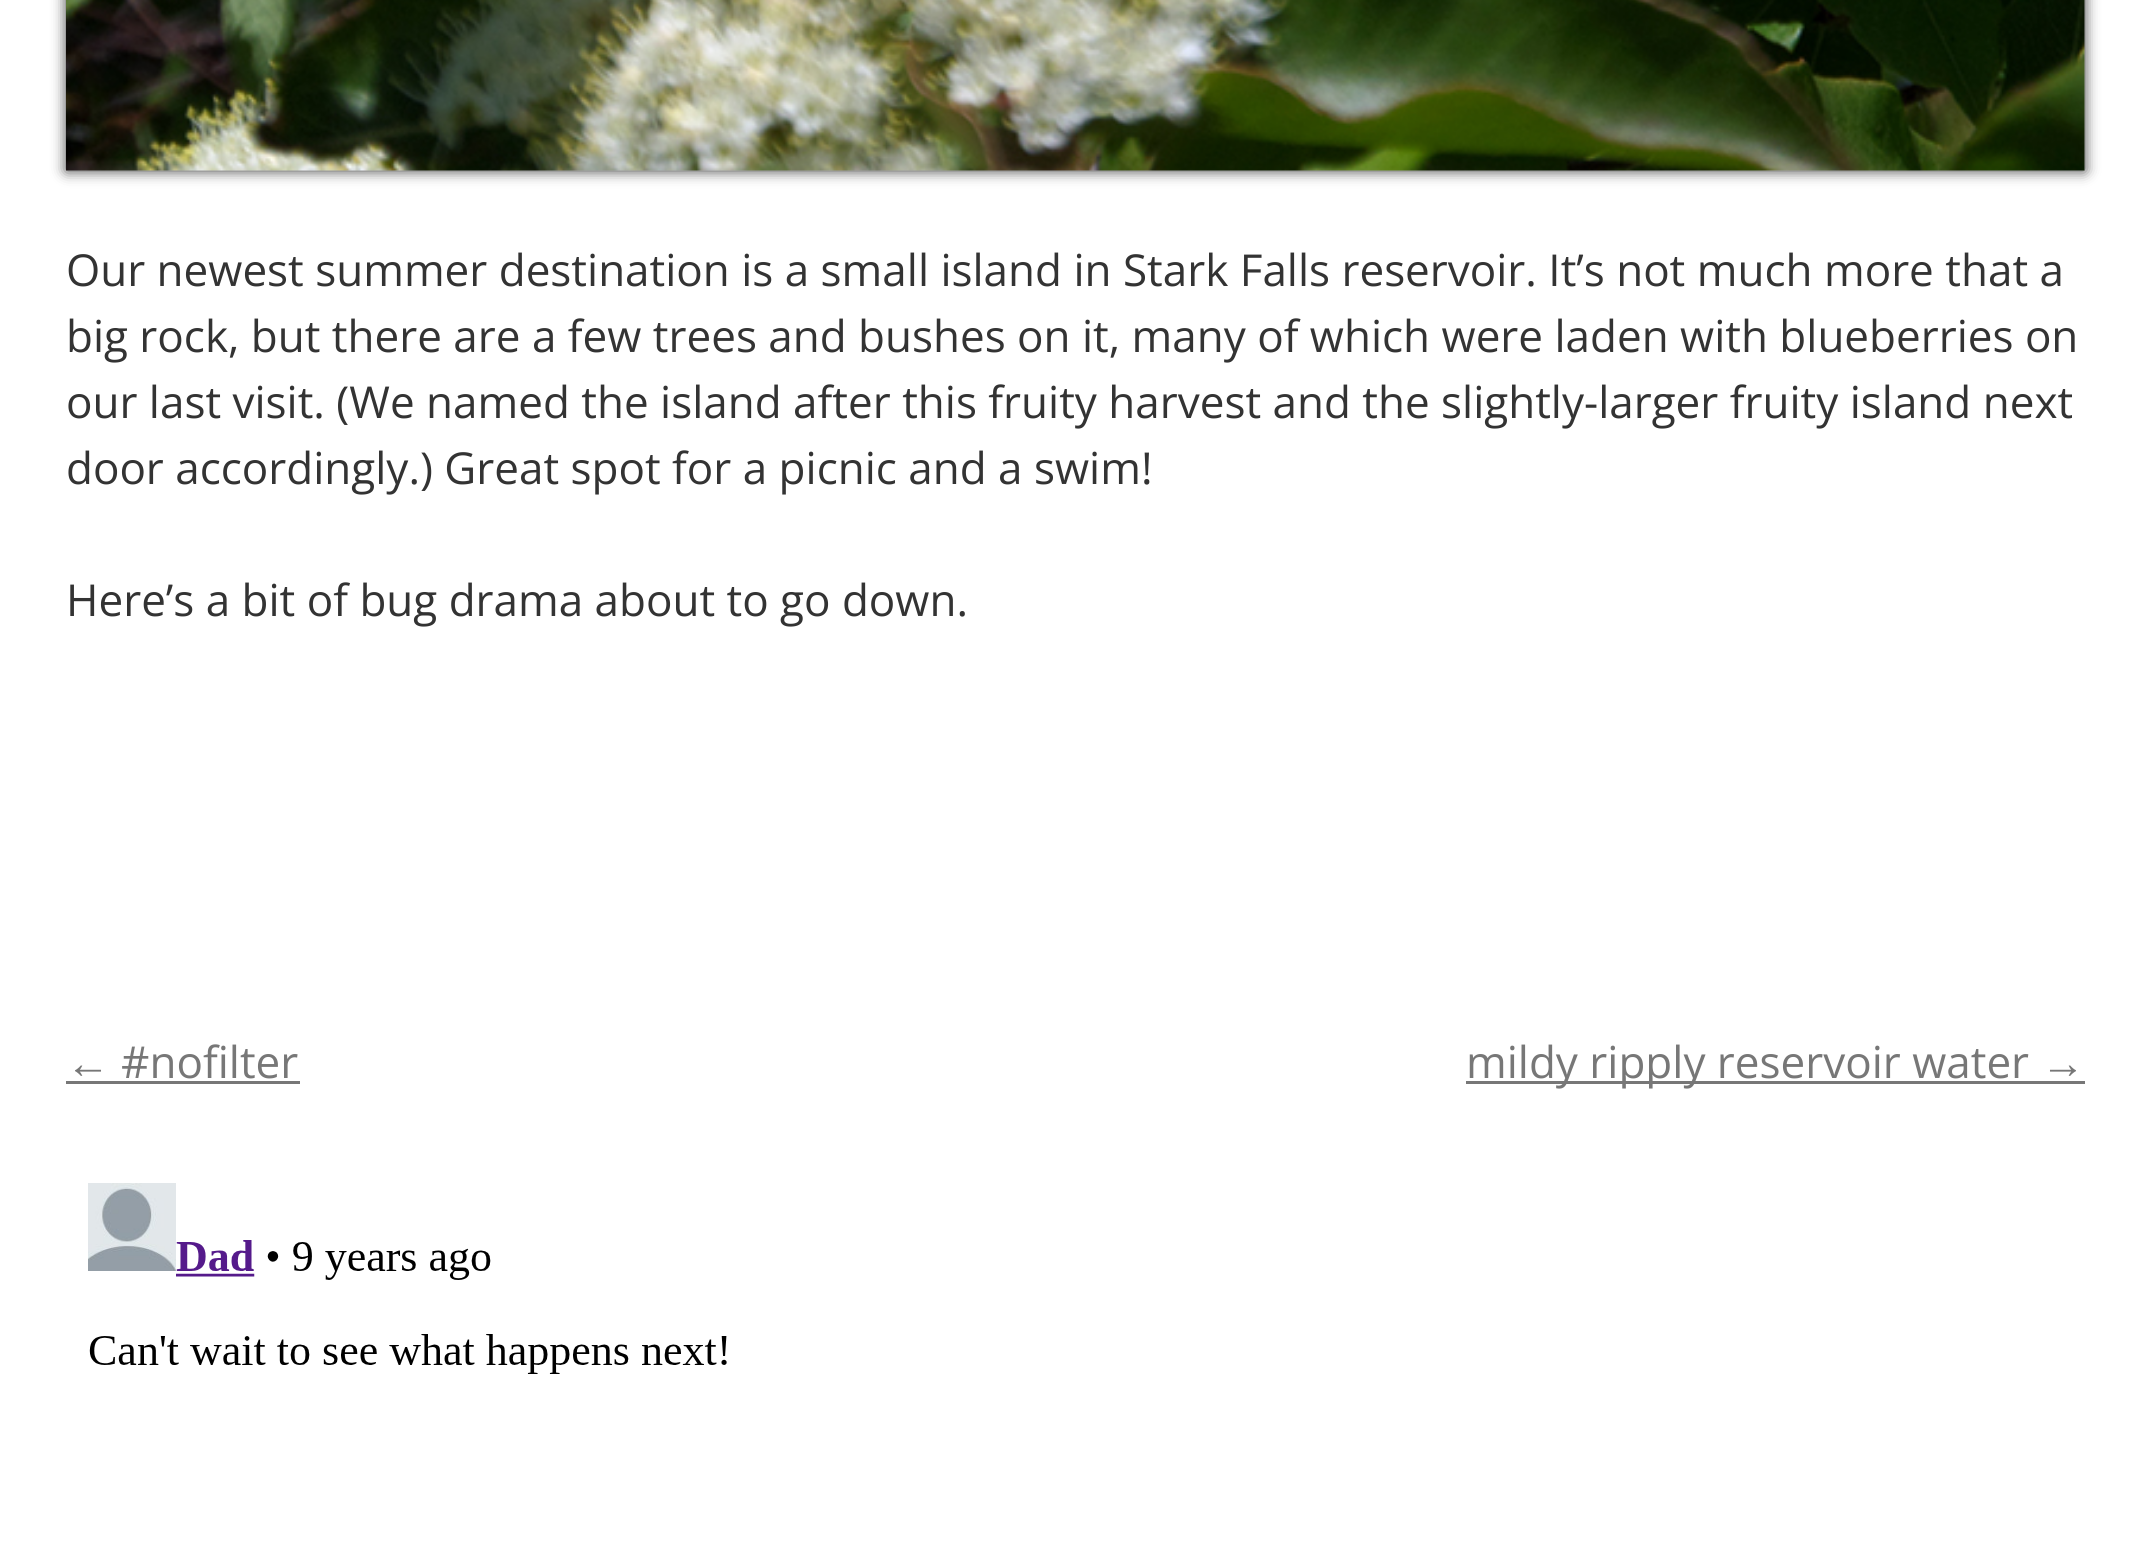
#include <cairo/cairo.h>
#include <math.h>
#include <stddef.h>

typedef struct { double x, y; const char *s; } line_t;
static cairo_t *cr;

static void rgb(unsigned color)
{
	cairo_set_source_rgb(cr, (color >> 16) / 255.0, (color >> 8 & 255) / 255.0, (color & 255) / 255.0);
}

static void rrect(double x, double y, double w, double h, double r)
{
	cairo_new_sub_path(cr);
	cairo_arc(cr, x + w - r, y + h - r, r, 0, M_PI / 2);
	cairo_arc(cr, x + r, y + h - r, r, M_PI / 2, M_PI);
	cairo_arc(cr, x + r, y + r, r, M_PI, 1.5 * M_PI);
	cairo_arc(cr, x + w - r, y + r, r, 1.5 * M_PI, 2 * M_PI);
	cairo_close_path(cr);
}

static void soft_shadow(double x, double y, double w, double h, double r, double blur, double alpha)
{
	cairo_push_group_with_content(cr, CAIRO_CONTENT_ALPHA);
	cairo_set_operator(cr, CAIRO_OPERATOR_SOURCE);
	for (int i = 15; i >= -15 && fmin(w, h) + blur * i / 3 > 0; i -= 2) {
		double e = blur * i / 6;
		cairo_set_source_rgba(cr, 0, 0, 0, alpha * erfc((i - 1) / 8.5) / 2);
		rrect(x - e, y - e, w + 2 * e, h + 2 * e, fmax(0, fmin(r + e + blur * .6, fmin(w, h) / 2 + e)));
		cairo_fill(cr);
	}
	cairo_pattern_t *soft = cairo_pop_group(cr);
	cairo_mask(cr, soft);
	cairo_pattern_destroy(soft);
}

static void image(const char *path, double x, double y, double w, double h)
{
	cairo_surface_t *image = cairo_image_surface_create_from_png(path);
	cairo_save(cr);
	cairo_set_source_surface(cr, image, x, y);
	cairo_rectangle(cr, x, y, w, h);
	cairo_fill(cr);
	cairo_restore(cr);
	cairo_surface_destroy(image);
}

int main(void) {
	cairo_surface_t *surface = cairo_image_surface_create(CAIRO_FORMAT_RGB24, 2149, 1547);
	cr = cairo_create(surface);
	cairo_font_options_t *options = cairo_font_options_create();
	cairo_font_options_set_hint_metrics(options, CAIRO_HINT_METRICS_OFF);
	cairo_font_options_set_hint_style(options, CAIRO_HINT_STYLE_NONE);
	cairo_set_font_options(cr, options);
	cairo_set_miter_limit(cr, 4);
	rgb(0xffffff);
	cairo_paint(cr);
	rgb(0x000000);
	soft_shadow(66, -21, 2019, 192, 0, 7, 0.75);
	image("img/1.png", 66, 0, 2019, 171);
	rgb(0x777777);
	cairo_rectangle(cr, 66, 1081, 234, 3);
	cairo_fill(cr);
	cairo_rectangle(cr, 1466, 1081, 619, 3);
	cairo_fill(cr);
	image("img/2.png", 88, 1183, 639, 191);
	cairo_select_font_face(cr, "Open Sans", CAIRO_FONT_SLANT_NORMAL, CAIRO_FONT_WEIGHT_NORMAL);
	cairo_set_font_size(cr, 44);
	rgb(0x333333);
	{
		static const line_t items[] = {
			{66, 286, "Our newest summer destination is a small island in Stark Falls reservoir. It’s not much more that a"},
			{66, 352, "big rock, but there are a few trees and bushes on it, many of which were laden with blueberries on"},
			{66, 418, "our last visit. (We named the island after this fruity harvest and the slightly-larger fruity island next"},
			{66, 484, "door accordingly.) Great spot for a picnic and a swim!"},
			{66, 616, "Here’s a bit of bug drama about to go down."},
		};
		for (size_t i = 0; i < sizeof items / sizeof *items; i++) {
			cairo_move_to(cr, items[i].x, items[i].y);
			cairo_show_text(cr, items[i].s);
		}
	}
	cairo_select_font_face(cr, "Liberation Sans", CAIRO_FONT_SLANT_NORMAL, CAIRO_FONT_WEIGHT_NORMAL);
	rgb(0x777777);
	cairo_move_to(cr, 66, 1078);
	cairo_show_text(cr, "←");
	cairo_select_font_face(cr, "Open Sans", CAIRO_FONT_SLANT_NORMAL, CAIRO_FONT_WEIGHT_NORMAL);
	cairo_move_to(cr, 121, 1078);
	cairo_show_text(cr, "#nofilter");
	cairo_move_to(cr, 1466, 1078);
	cairo_show_text(cr, "mildy ripply reservoir water");
	cairo_select_font_face(cr, "Liberation Sans", CAIRO_FONT_SLANT_NORMAL, CAIRO_FONT_WEIGHT_NORMAL);
	cairo_move_to(cr, 2041, 1078);
	cairo_show_text(cr, "→");
	cairo_surface_write_to_png(surface, "page.png");
	cairo_font_options_destroy(options);
	cairo_destroy(cr);
	cairo_surface_destroy(surface);
	return 0;
}
